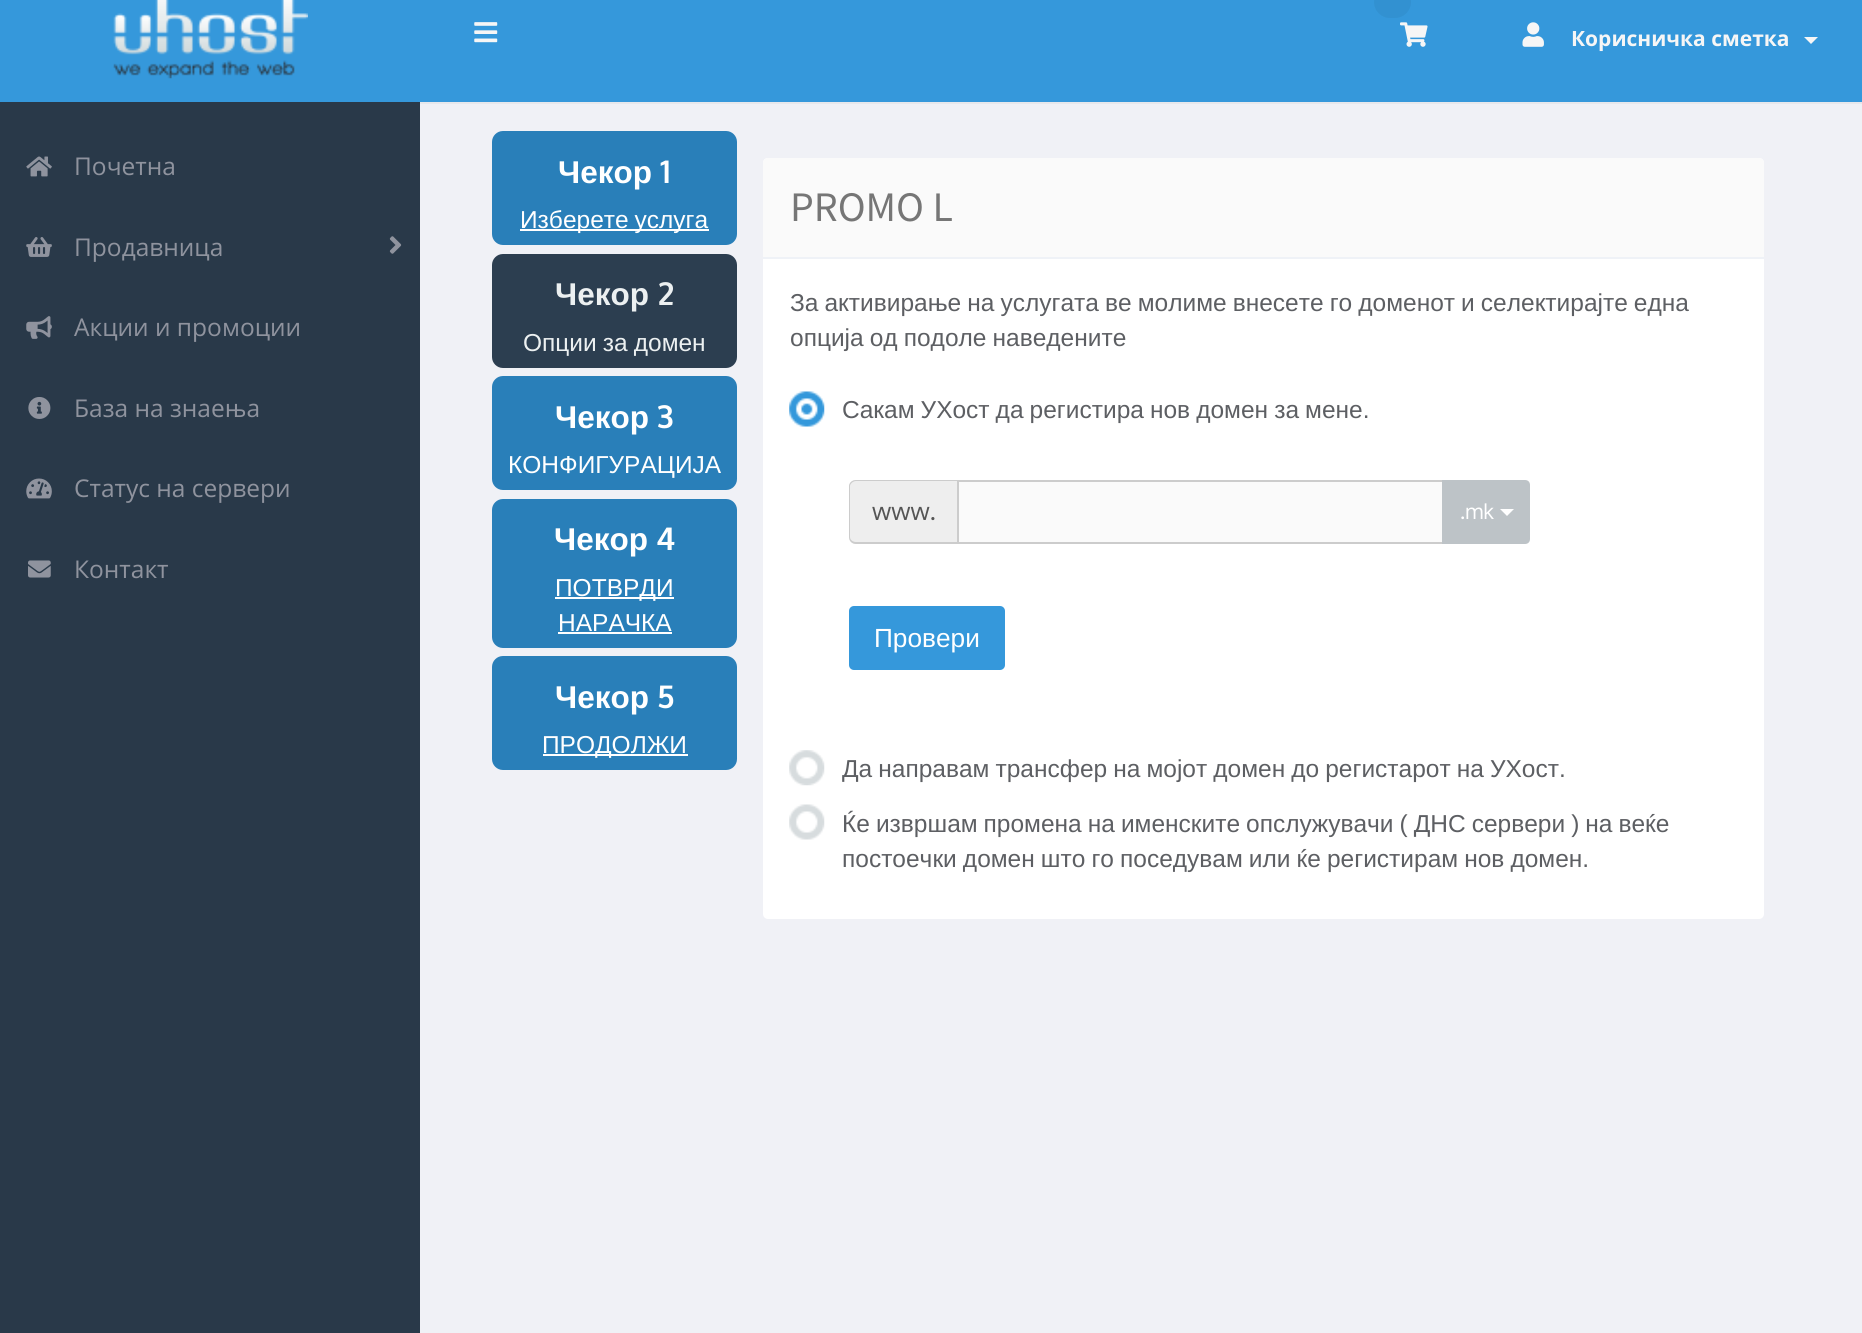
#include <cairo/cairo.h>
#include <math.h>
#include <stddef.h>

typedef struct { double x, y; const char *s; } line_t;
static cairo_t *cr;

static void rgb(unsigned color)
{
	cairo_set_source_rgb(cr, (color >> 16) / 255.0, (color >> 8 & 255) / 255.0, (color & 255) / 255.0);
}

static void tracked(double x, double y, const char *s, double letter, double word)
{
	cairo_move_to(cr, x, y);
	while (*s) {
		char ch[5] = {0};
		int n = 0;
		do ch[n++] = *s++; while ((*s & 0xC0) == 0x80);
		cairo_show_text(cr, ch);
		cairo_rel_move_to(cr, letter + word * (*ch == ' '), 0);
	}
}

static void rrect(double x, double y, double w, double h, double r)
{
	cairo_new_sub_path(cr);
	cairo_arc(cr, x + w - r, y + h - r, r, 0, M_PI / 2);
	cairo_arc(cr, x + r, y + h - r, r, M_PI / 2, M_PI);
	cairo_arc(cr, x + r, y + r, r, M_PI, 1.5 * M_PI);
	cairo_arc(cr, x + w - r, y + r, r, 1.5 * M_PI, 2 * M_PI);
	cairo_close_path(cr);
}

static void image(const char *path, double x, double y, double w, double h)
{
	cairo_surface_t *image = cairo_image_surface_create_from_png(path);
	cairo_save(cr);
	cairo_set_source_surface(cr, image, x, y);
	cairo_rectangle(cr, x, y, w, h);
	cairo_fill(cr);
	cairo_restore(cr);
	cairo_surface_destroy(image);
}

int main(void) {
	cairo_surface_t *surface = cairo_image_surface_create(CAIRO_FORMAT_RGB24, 1862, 1333);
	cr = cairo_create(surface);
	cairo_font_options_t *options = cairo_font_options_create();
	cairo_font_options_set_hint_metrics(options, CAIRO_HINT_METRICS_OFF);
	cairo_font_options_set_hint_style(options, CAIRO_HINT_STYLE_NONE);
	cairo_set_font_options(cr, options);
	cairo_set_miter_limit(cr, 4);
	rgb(0xf0f1f6);
	cairo_paint(cr);
	rgb(0x3598db);
	cairo_rectangle(cr, 0, 0, 1862, 102);
	cairo_fill(cr);
	image("img/1.png", 113, 0, 195, 79);
	image("img/2.png", 474, 22, 24, 21);
	rgb(0x3291d1);
	rrect(1374, -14, 37, 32, 16);
	cairo_fill(cr);
	image("img/3.png", 1400, 22, 28, 25);
	image("img/4.png", 1522, 22, 22, 25);
	rgb(0xf6f6f6);
	cairo_new_path(cr);
	cairo_move_to(cr, 1804, 37);
	cairo_line_to(cr, 1818, 37);
	cairo_line_to(cr, 1811, 44);
	cairo_close_path(cr);
	cairo_fill(cr);
	rgb(0x293949);
	cairo_rectangle(cr, 0, 102, 420, 1231);
	cairo_fill(cr);
	image("img/5.png", 26, 156, 26, 21);
	image("img/6.png", 26, 237, 26, 20);
	image("img/7.png", 389, 236, 13, 18);
	image("img/8.png", 26, 316, 26, 23);
	image("img/9.png", 28, 397, 23, 22);
	image("img/10.png", 26, 478, 26, 21);
	image("img/11.png", 28, 560, 23, 18);
	rgb(0xe7e8ec);
	cairo_rectangle(cr, 420, 102, 1442, 2);
	cairo_fill(cr);
	rgb(0x297fb9);
	rrect(492, 131, 245, 114, 11);
	cairo_fill(cr);
	rgb(0xffffff);
	cairo_rectangle(cr, 520, 229, 189, 2);
	cairo_fill(cr);
	rgb(0x2c3e50);
	rrect(492, 254, 245, 114, 11);
	cairo_fill(cr);
	rgb(0x297fb9);
	rrect(492, 376, 245, 114, 11);
	cairo_fill(cr);
	rrect(492, 499, 245, 149, 11);
	cairo_fill(cr);
	rgb(0xffffff);
	cairo_rectangle(cr, 555, 597, 119, 2);
	cairo_fill(cr);
	cairo_rectangle(cr, 558, 632, 114, 2);
	cairo_fill(cr);
	rgb(0x297fb9);
	rrect(492, 656, 245, 114, 11);
	cairo_fill(cr);
	rgb(0xffffff);
	cairo_rectangle(cr, 543, 754, 145, 2);
	cairo_fill(cr);
	rrect(763, 158, 1001, 761, 5);
	cairo_fill(cr);
	rgb(0xfafafa);
	cairo_new_path(cr);
	cairo_move_to(cr, 768, 158);
	cairo_line_to(cr, 1759, 158);
	cairo_curve_to(cr, 1762, 158, 1764, 160, 1764, 163);
	cairo_line_to(cr, 1764, 259);
	cairo_line_to(cr, 763, 259);
	cairo_line_to(cr, 763, 163);
	cairo_curve_to(cr, 763, 160, 765, 158, 768, 158);
	cairo_close_path(cr);
	cairo_fill(cr);
	rgb(0xeff2f7);
	cairo_rectangle(cr, 763, 257, 1001, 2);
	cairo_fill(cr);
	image("img/12.png", 789, 391, 36, 36);
	rgb(0xeeeeee);
	cairo_new_path(cr);
	cairo_move_to(cr, 856, 480);
	cairo_line_to(cr, 957, 480);
	cairo_line_to(cr, 957, 544);
	cairo_line_to(cr, 856, 544);
	cairo_curve_to(cr, 852, 544, 849, 541, 849, 537);
	cairo_line_to(cr, 849, 487);
	cairo_curve_to(cr, 849, 483, 852, 480, 856, 480);
	cairo_close_path(cr);
	cairo_fill(cr);
	rgb(0xcccccc);
	cairo_set_fill_rule(cr, CAIRO_FILL_RULE_EVEN_ODD);
	cairo_new_path(cr);
	cairo_move_to(cr, 856, 480);
	cairo_line_to(cr, 957, 480);
	cairo_line_to(cr, 957, 544);
	cairo_line_to(cr, 856, 544);
	cairo_curve_to(cr, 852, 544, 849, 541, 849, 537);
	cairo_line_to(cr, 849, 486);
	cairo_curve_to(cr, 849, 483, 852, 480, 856, 480);
	cairo_close_path(cr);
	cairo_move_to(cr, 856, 481);
	cairo_line_to(cr, 957, 481);
	cairo_line_to(cr, 957, 542);
	cairo_line_to(cr, 856, 542);
	cairo_curve_to(cr, 853, 542, 850, 540, 850, 537);
	cairo_line_to(cr, 850, 486);
	cairo_curve_to(cr, 850, 484, 853, 481, 856, 481);
	cairo_close_path(cr);
	cairo_fill(cr);
	rgb(0xfafafa);
	cairo_rectangle(cr, 958, 481, 485, 62);
	cairo_fill_preserve(cr);
	rgb(0xcccccc);
	cairo_stroke(cr);
	rgb(0xbdc3c7);
	cairo_new_path(cr);
	cairo_move_to(cr, 1442, 480);
	cairo_line_to(cr, 1525, 480);
	cairo_curve_to(cr, 1528, 480, 1530, 482, 1530, 485);
	cairo_line_to(cr, 1530, 539);
	cairo_curve_to(cr, 1530, 542, 1528, 544, 1525, 544);
	cairo_line_to(cr, 1442, 544);
	cairo_close_path(cr);
	cairo_fill(cr);
	rgb(0xffffff);
	cairo_set_fill_rule(cr, CAIRO_FILL_RULE_WINDING);
	cairo_new_path(cr);
	cairo_move_to(cr, 1500, 509);
	cairo_line_to(cr, 1514, 509);
	cairo_line_to(cr, 1507, 516);
	cairo_close_path(cr);
	cairo_fill(cr);
	rgb(0x3598db);
	rrect(849, 606, 156, 64, 5);
	cairo_fill(cr);
	image("img/13.png", 789, 750, 36, 36);
	image("img/14.png", 789, 804, 36, 36);
	cairo_select_font_face(cr, "Open Sans", CAIRO_FONT_SLANT_NORMAL, CAIRO_FONT_WEIGHT_BOLD);
	cairo_set_font_size(cr, 21);
	rgb(0xf6f6f6);
	cairo_move_to(cr, 1571, 46);
	cairo_show_text(cr, "Корисничка сметка");
	cairo_select_font_face(cr, "Open Sans", CAIRO_FONT_SLANT_NORMAL, CAIRO_FONT_WEIGHT_NORMAL);
	cairo_set_font_size(cr, 24.5);
	rgb(0x8f939e);
	{
		static const line_t items[] = {
			{74, 175, "Почетна"},
			{74, 256, "Продавница"},
			{74, 336, "Акции и промоции"},
			{74, 417, "База на знаења"},
			{74, 497, "Статус на сервери"},
			{74, 578, "Контакт"},
		};
		for (size_t i = 0; i < sizeof items / sizeof *items; i++) {
			cairo_move_to(cr, items[i].x, items[i].y);
			cairo_show_text(cr, items[i].s);
		}
	}
	cairo_select_font_face(cr, "Liberation Sans", CAIRO_FONT_SLANT_NORMAL, CAIRO_FONT_WEIGHT_BOLD);
	cairo_set_font_size(cr, 31.5);
	rgb(0xffffff);
	cairo_move_to(cr, 558, 183);
	cairo_show_text(cr, "Чекор");
	cairo_select_font_face(cr, "Oxygen", CAIRO_FONT_SLANT_NORMAL, CAIRO_FONT_WEIGHT_BOLD);
	cairo_move_to(cr, 660, 183);
	cairo_show_text(cr, "1");
	cairo_select_font_face(cr, "Liberation Sans", CAIRO_FONT_SLANT_NORMAL, CAIRO_FONT_WEIGHT_NORMAL);
	cairo_set_font_size(cr, 24.5);
	tracked(520, 228, "Изберете услуга", 0, -1);
	cairo_select_font_face(cr, "Liberation Sans", CAIRO_FONT_SLANT_NORMAL, CAIRO_FONT_WEIGHT_BOLD);
	cairo_set_font_size(cr, 31.5);
	rgb(0xecf0f1);
	cairo_move_to(cr, 555, 305);
	cairo_show_text(cr, "Чекор");
	cairo_select_font_face(cr, "Oxygen", CAIRO_FONT_SLANT_NORMAL, CAIRO_FONT_WEIGHT_BOLD);
	cairo_move_to(cr, 658, 305);
	cairo_show_text(cr, "2");
	cairo_select_font_face(cr, "Liberation Sans", CAIRO_FONT_SLANT_NORMAL, CAIRO_FONT_WEIGHT_NORMAL);
	cairo_set_font_size(cr, 24.5);
	tracked(523, 351, "Опции за домен", 0, -0.75);
	cairo_select_font_face(cr, "Liberation Sans", CAIRO_FONT_SLANT_NORMAL, CAIRO_FONT_WEIGHT_BOLD);
	cairo_set_font_size(cr, 31.5);
	rgb(0xffffff);
	cairo_move_to(cr, 555, 428);
	cairo_show_text(cr, "Чекор");
	cairo_select_font_face(cr, "Oxygen", CAIRO_FONT_SLANT_NORMAL, CAIRO_FONT_WEIGHT_BOLD);
	cairo_move_to(cr, 657, 428);
	cairo_show_text(cr, "3");
	cairo_select_font_face(cr, "Liberation Sans", CAIRO_FONT_SLANT_NORMAL, CAIRO_FONT_WEIGHT_NORMAL);
	cairo_set_font_size(cr, 24.5);
	cairo_move_to(cr, 508, 473);
	cairo_show_text(cr, "КОНФИГУРАЦИЈА");
	cairo_select_font_face(cr, "Liberation Sans", CAIRO_FONT_SLANT_NORMAL, CAIRO_FONT_WEIGHT_BOLD);
	cairo_set_font_size(cr, 31.5);
	cairo_move_to(cr, 554, 550);
	cairo_show_text(cr, "Чекор");
	cairo_select_font_face(cr, "Oxygen", CAIRO_FONT_SLANT_NORMAL, CAIRO_FONT_WEIGHT_BOLD);
	cairo_move_to(cr, 656, 550);
	cairo_show_text(cr, "4");
	cairo_select_font_face(cr, "Liberation Sans", CAIRO_FONT_SLANT_NORMAL, CAIRO_FONT_WEIGHT_NORMAL);
	cairo_set_font_size(cr, 24.5);
	cairo_move_to(cr, 555, 596);
	cairo_show_text(cr, "ПОТВРДИ");
	cairo_move_to(cr, 558, 631);
	cairo_show_text(cr, "НАРАЧКА");
	cairo_select_font_face(cr, "Liberation Sans", CAIRO_FONT_SLANT_NORMAL, CAIRO_FONT_WEIGHT_BOLD);
	cairo_set_font_size(cr, 31.5);
	cairo_move_to(cr, 555, 708);
	cairo_show_text(cr, "Чекор");
	cairo_select_font_face(cr, "Oxygen", CAIRO_FONT_SLANT_NORMAL, CAIRO_FONT_WEIGHT_BOLD);
	cairo_move_to(cr, 657, 708);
	cairo_show_text(cr, "5");
	cairo_select_font_face(cr, "Liberation Sans", CAIRO_FONT_SLANT_NORMAL, CAIRO_FONT_WEIGHT_NORMAL);
	cairo_set_font_size(cr, 24.5);
	cairo_move_to(cr, 542, 753);
	cairo_show_text(cr, "ПРОДОЛЖИ");
	cairo_select_font_face(cr, "Source Sans Pro", CAIRO_FONT_SLANT_NORMAL, CAIRO_FONT_WEIGHT_NORMAL);
	cairo_set_font_size(cr, 42);
	rgb(0x767676);
	cairo_move_to(cr, 790, 221);
	cairo_show_text(cr, "PROMO L");
	cairo_select_font_face(cr, "Liberation Sans", CAIRO_FONT_SLANT_NORMAL, CAIRO_FONT_WEIGHT_NORMAL);
	cairo_set_font_size(cr, 24.5);
	rgb(0x5d5f63);
	{
		static const line_t items[] = {
			{790, 311, "За активирање на услугата ве молиме внесете го доменот и селектирајте една"},
			{790, 346, "опција од подоле наведените"},
			{842, 418, "Сакам УХост да регистира нов домен за мене."},
		};
		for (size_t i = 0; i < sizeof items / sizeof *items; i++) {
			tracked(items[i].x, items[i].y, items[i].s, 0, -0.75);
		}
	}
	cairo_select_font_face(cr, "Oxygen", CAIRO_FONT_SLANT_NORMAL, CAIRO_FONT_WEIGHT_NORMAL);
	rgb(0x555555);
	cairo_move_to(cr, 872, 520);
	cairo_show_text(cr, "www.");
	cairo_set_font_size(cr, 21);
	rgb(0xffffff);
	cairo_move_to(cr, 1460, 519);
	cairo_show_text(cr, ".mk");
	cairo_select_font_face(cr, "Liberation Sans", CAIRO_FONT_SLANT_NORMAL, CAIRO_FONT_WEIGHT_NORMAL);
	cairo_set_font_size(cr, 26.25);
	cairo_move_to(cr, 874, 647);
	cairo_show_text(cr, "Провери");
	cairo_set_font_size(cr, 24.5);
	rgb(0x5d5f63);
	tracked(842, 777, "Да направам трансфер на мојот домен до регистарот на УХост.", 0, -0.75);
	tracked(842, 832, "Ќе извршам промена на именските опслужувачи ( ДНС сервери ) на веќе", 0, -0.8);
	tracked(842, 867, "постоечки домен што го поседувам или ќе регистирам нов домен.", 0, -0.75);
	cairo_surface_write_to_png(surface, "page.png");
	cairo_font_options_destroy(options);
	cairo_destroy(cr);
	cairo_surface_destroy(surface);
	return 0;
}
